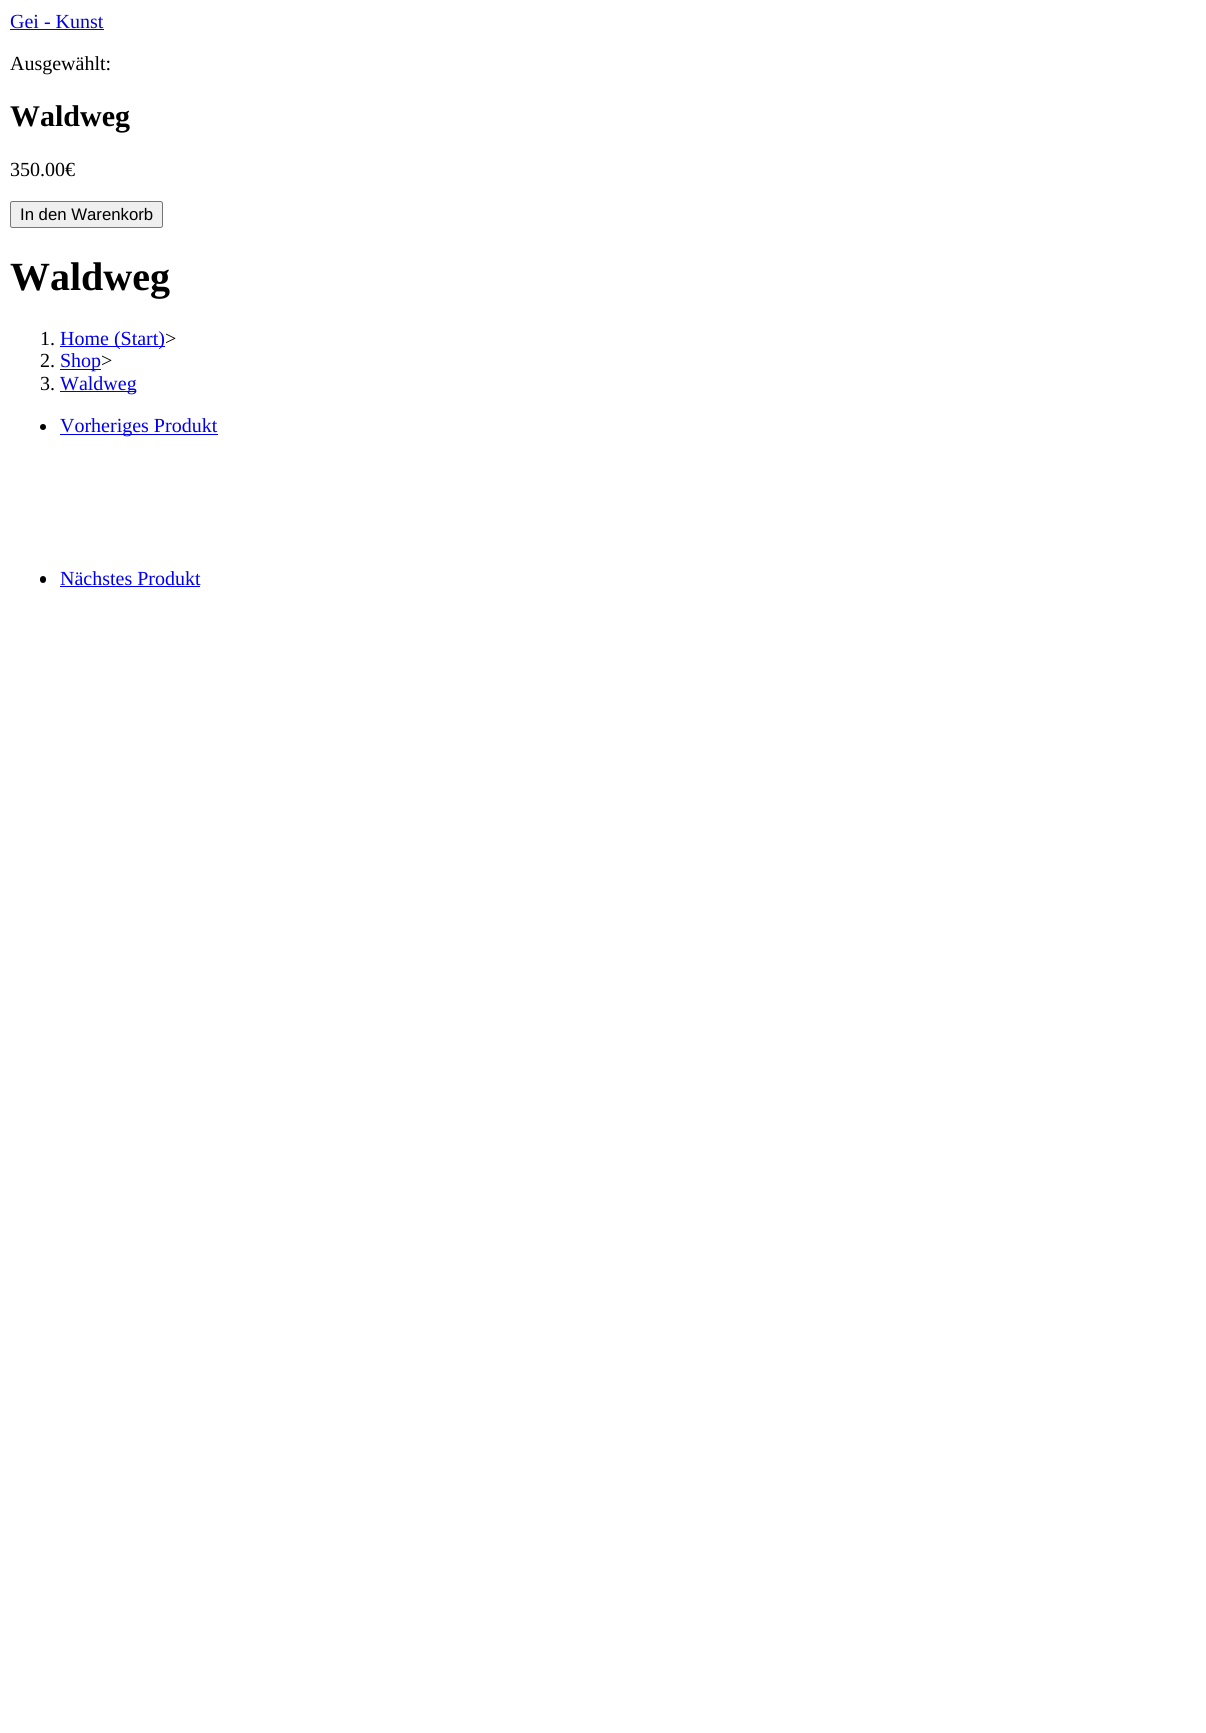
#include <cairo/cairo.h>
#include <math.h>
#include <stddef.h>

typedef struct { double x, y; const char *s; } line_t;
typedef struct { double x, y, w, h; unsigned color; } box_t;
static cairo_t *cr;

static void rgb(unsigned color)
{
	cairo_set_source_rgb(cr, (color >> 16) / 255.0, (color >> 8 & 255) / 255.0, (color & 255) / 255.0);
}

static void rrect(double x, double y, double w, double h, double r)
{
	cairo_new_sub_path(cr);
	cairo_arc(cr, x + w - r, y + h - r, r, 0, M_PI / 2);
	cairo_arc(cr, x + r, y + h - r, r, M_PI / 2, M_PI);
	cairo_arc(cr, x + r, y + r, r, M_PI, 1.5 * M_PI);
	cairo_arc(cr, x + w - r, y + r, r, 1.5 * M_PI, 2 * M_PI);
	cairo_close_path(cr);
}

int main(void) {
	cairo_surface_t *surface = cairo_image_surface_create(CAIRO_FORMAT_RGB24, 1206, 1733);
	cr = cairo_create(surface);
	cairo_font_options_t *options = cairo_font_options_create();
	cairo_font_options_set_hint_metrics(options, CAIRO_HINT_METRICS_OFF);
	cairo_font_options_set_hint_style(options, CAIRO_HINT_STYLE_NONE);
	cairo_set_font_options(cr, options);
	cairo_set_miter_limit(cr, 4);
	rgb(0xffffff);
	cairo_paint(cr);
	rgb(0x0000ee);
	cairo_rectangle(cr, 10, 29, 94, 1);
	cairo_fill(cr);
	rgb(0xefefef);
	rrect(10.5, 201.5, 152, 26, 2);
	cairo_fill_preserve(cr);
	rgb(0x767676);
	cairo_set_line_width(cr, 1);
	cairo_stroke(cr);
	{
		static const box_t items[] = {
			{60, 346, 105, 1, 0x0000ee},
			{60, 369, 41, 1, 0x0000ee},
			{60, 391, 76, 1, 0x0000ee},
		};
		for (size_t i = 0; i < sizeof items / sizeof *items; i++) {
			rgb(items[i].color);
			cairo_rectangle(cr, items[i].x, items[i].y, items[i].w, items[i].h);
			cairo_fill(cr);
		}
	}
	rgb(0x000000);
	cairo_arc(cr, 43, 427, 3, 0, 2 * M_PI);
	cairo_fill(cr);
	rgb(0x0000ee);
	cairo_rectangle(cr, 60, 434, 158, 1);
	cairo_fill(cr);
	rgb(0x000000);
	rrect(40, 576, 6, 7, 3);
	cairo_fill(cr);
	rgb(0x0000ee);
	cairo_rectangle(cr, 60, 586, 140, 1);
	cairo_fill(cr);
	cairo_select_font_face(cr, "Liberation Serif", CAIRO_FONT_SLANT_NORMAL, CAIRO_FONT_WEIGHT_NORMAL);
	cairo_set_font_size(cr, 20);
	cairo_move_to(cr, 10, 28);
	cairo_show_text(cr, "Gei - Kunst");
	rgb(0x000000);
	cairo_move_to(cr, 10, 70);
	cairo_show_text(cr, "Ausgewählt:");
	cairo_select_font_face(cr, "Liberation Serif", CAIRO_FONT_SLANT_NORMAL, CAIRO_FONT_WEIGHT_BOLD);
	cairo_set_font_size(cr, 30);
	cairo_move_to(cr, 10, 126);
	cairo_show_text(cr, "Waldweg");
	cairo_select_font_face(cr, "Liberation Serif", CAIRO_FONT_SLANT_NORMAL, CAIRO_FONT_WEIGHT_NORMAL);
	cairo_set_font_size(cr, 20);
	cairo_move_to(cr, 10, 176);
	cairo_show_text(cr, "350.00€");
	cairo_select_font_face(cr, "Liberation Sans", CAIRO_FONT_SLANT_NORMAL, CAIRO_FONT_WEIGHT_NORMAL);
	cairo_set_font_size(cr, 16.75);
	cairo_move_to(cr, 20, 220);
	cairo_show_text(cr, "In den Warenkorb");
	cairo_select_font_face(cr, "Liberation Serif", CAIRO_FONT_SLANT_NORMAL, CAIRO_FONT_WEIGHT_BOLD);
	cairo_set_font_size(cr, 40);
	cairo_move_to(cr, 10, 290);
	cairo_show_text(cr, "Waldweg");
	cairo_select_font_face(cr, "Liberation Serif", CAIRO_FONT_SLANT_NORMAL, CAIRO_FONT_WEIGHT_NORMAL);
	cairo_set_font_size(cr, 20);
	cairo_move_to(cr, 40, 345);
	cairo_show_text(cr, "1.");
	rgb(0x0000ee);
	cairo_move_to(cr, 60, 345);
	cairo_show_text(cr, "Home (Start)");
	rgb(0x000000);
	cairo_move_to(cr, 165, 345);
	cairo_show_text(cr, ">");
	cairo_move_to(cr, 40, 367);
	cairo_show_text(cr, "2.");
	rgb(0x0000ee);
	cairo_move_to(cr, 60, 367);
	cairo_show_text(cr, "Shop");
	rgb(0x000000);
	cairo_move_to(cr, 101, 367);
	cairo_show_text(cr, ">");
	cairo_move_to(cr, 40, 390);
	cairo_show_text(cr, "3.");
	rgb(0x0000ee);
	{
		static const line_t items[] = {
			{60, 390, "Waldweg"},
			{60, 432, "Vorheriges Produkt"},
			{60, 585, "Nächstes Produkt"},
		};
		for (size_t i = 0; i < sizeof items / sizeof *items; i++) {
			cairo_move_to(cr, items[i].x, items[i].y);
			cairo_show_text(cr, items[i].s);
		}
	}
	cairo_surface_write_to_png(surface, "page.png");
	cairo_font_options_destroy(options);
	cairo_destroy(cr);
	cairo_surface_destroy(surface);
	return 0;
}
